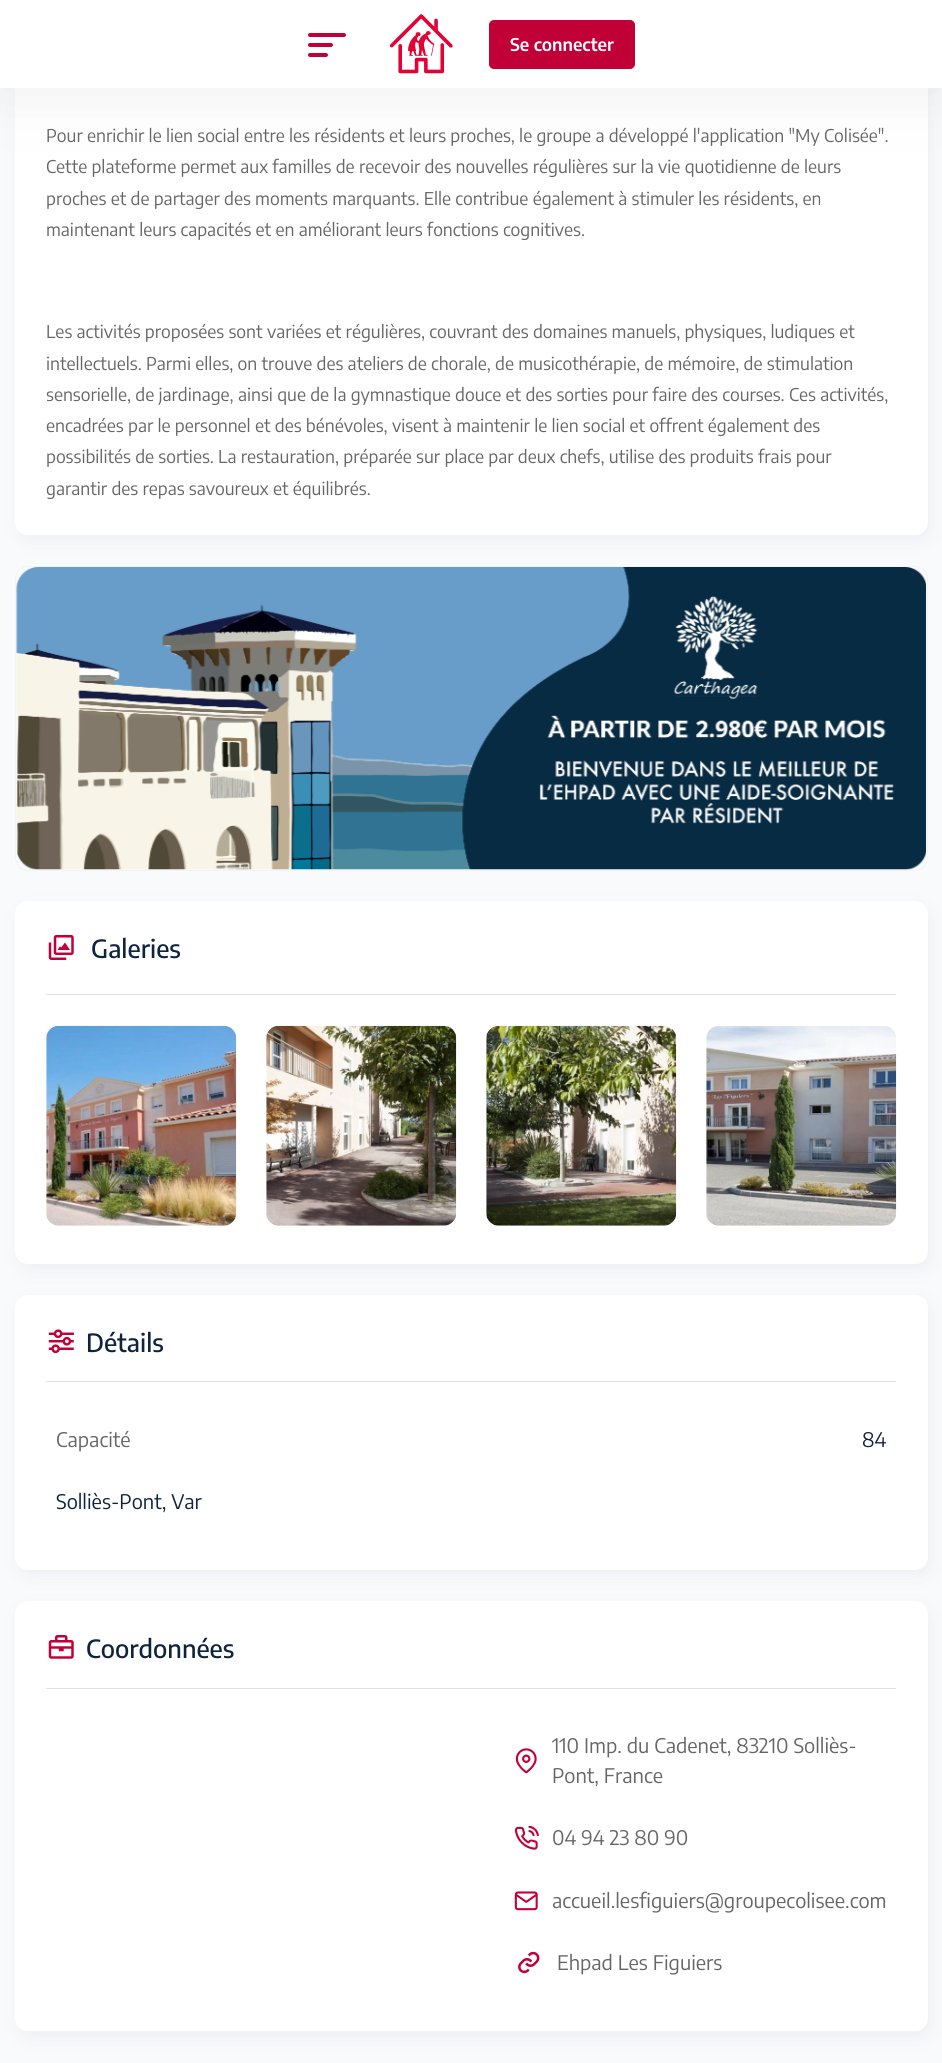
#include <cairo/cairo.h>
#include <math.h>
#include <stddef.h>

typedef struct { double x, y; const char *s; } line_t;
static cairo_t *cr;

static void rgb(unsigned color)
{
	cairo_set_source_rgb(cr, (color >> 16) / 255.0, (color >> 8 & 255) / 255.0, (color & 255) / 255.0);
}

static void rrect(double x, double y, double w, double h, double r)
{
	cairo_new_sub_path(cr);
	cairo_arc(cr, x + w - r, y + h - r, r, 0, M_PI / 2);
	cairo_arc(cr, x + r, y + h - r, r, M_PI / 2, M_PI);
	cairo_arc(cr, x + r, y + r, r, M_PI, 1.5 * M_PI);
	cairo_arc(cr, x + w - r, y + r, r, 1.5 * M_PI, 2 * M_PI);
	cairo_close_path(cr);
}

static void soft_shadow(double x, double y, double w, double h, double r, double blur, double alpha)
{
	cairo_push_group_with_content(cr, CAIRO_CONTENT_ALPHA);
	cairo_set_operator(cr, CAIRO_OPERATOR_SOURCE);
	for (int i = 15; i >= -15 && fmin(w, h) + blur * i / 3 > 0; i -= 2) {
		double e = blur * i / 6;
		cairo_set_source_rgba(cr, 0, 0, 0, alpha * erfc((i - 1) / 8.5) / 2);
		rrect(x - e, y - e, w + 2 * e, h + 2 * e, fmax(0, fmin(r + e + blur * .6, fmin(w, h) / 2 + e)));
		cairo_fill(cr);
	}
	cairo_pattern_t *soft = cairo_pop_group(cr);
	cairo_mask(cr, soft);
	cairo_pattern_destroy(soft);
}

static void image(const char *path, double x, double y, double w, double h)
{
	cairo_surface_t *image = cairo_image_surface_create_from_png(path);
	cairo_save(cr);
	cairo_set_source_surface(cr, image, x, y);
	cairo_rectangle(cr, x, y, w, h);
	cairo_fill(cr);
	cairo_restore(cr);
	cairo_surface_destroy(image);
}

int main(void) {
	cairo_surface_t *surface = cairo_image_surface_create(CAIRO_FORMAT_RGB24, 942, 2063);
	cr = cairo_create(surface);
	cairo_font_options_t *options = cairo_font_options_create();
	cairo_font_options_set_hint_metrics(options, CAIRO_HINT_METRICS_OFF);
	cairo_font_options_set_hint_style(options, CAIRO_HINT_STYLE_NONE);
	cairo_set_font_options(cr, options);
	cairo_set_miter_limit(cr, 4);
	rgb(0xf9fafc);
	cairo_paint(cr);
	rgb(0xdee2e7);
	soft_shadow(19, -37, 912, 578, 13, 8, 0.44);
	rgb(0xffffff);
	rrect(15, -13, 913, 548, 13);
	cairo_fill(cr);
	rgb(0xc4c4c4);
	soft_shadow(0, 4, 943, 87, 0, 33, 0.27);
	rgb(0xffffff);
	cairo_rectangle(cr, 0, 0, 942, 88);
	cairo_fill(cr);
	rgb(0xc10037);
	rrect(308, 33, 38, 4, 2);
	cairo_fill(cr);
	rrect(308, 43, 25, 4, 2);
	cairo_fill(cr);
	rrect(308, 53, 20, 4, 2);
	cairo_fill(cr);
	image("img/1.png", 389, 14, 64, 60);
	rrect(489.5, 20.5, 145, 48, 4.5);
	cairo_fill_preserve(cr);
	cairo_set_line_width(cr, 1);
	cairo_stroke(cr);
	rrect(15.5, 566.5, 912, 304, 12.5);
	rgb(0xf3f3f3);
	cairo_stroke(cr);
	image("img/2.png", 16, 567, 910, 303);
	rgb(0xdee2e7);
	soft_shadow(19, 908, 912, 362, 13, 8, 0.44);
	rgb(0xffffff);
	rrect(15, 901, 913, 363, 13);
	cairo_fill(cr);
	rgb(0xdee2e7);
	cairo_rectangle(cr, 46, 994, 850, 1);
	cairo_fill(cr);
	image("img/3.png", 48, 935, 26, 25);
	image("img/4.png", 46, 1025, 191, 201);
	image("img/5.png", 266, 1025, 191, 201);
	image("img/6.png", 486, 1025, 191, 201);
	image("img/7.png", 706, 1026, 191, 200);
	rgb(0xdee2e7);
	soft_shadow(19, 1301, 912, 275, 13, 8, 0.44);
	rgb(0xffffff);
	rrect(15, 1295, 913, 275, 13);
	cairo_fill(cr);
	rgb(0xdee2e7);
	cairo_rectangle(cr, 46, 1381, 850, 1);
	cairo_fill(cr);
	image("img/8.png", 48, 1329, 26, 25);
	rgb(0xdee2e7);
	soft_shadow(19, 1608, 912, 430, 13, 8, 0.44);
	rgb(0xffffff);
	rrect(15, 1601, 913, 430, 13);
	cairo_fill(cr);
	rgb(0xdee2e7);
	cairo_rectangle(cr, 46, 1688, 850, 1);
	cairo_fill(cr);
	image("img/9.png", 48, 1635, 26, 24);
	image("img/10.png", 515, 1748, 22, 26);
	image("img/11.png", 514, 1825, 25, 25);
	image("img/12.png", 514, 1891, 24, 20);
	image("img/13.png", 518, 1951, 22, 23);
	cairo_select_font_face(cr, "Encode Sans Condensed SemiBold", CAIRO_FONT_SLANT_NORMAL, CAIRO_FONT_WEIGHT_NORMAL);
	cairo_set_font_size(cr, 17.5);
	rgb(0xffffff);
	cairo_move_to(cr, 510, 51);
	cairo_show_text(cr, "Se connecter");
	cairo_select_font_face(cr, "Encode Sans Condensed", CAIRO_FONT_SLANT_NORMAL, CAIRO_FONT_WEIGHT_NORMAL);
	rgb(0x666666);
	{
		static const line_t items[] = {
			{46, 142, "Pour enrichir le lien social entre les résidents et leurs proches, le groupe a développé l'application \"My Colisée\"."},
			{46, 173, "Cette plateforme permet aux familles de recevoir des nouvelles régulières sur la vie quotidienne de leurs"},
			{46, 205, "proches et de partager des moments marquants. Elle contribue également à stimuler les résidents, en"},
			{46, 236, "maintenant leurs capacités et en améliorant leurs fonctions cognitives."},
			{46, 338, "Les activités proposées sont variées et régulières, couvrant des domaines manuels, physiques, ludiques et"},
			{46, 370, "intellectuels. Parmi elles, on trouve des ateliers de chorale, de musicothérapie, de mémoire, de stimulation"},
			{46, 401, "sensorielle, de jardinage, ainsi que de la gymnastique douce et des sorties pour faire des courses. Ces activités,"},
			{46, 432, "encadrées par le personnel et des bénévoles, visent à maintenir le lien social et offrent également des"},
			{46, 463, "possibilités de sorties. La restauration, préparée sur place par deux chefs, utilise des produits frais pour"},
			{46, 495, "garantir des repas savoureux et équilibrés."},
		};
		for (size_t i = 0; i < sizeof items / sizeof *items; i++) {
			cairo_move_to(cr, items[i].x, items[i].y);
			cairo_show_text(cr, items[i].s);
		}
	}
	cairo_select_font_face(cr, "Encode Sans Condensed Medium", CAIRO_FONT_SLANT_NORMAL, CAIRO_FONT_WEIGHT_NORMAL);
	cairo_set_font_size(cr, 25);
	rgb(0x0d233e);
	cairo_move_to(cr, 91, 958);
	cairo_show_text(cr, "Galeries");
	cairo_move_to(cr, 86, 1352);
	cairo_show_text(cr, "Détails");
	cairo_select_font_face(cr, "Encode Sans Condensed", CAIRO_FONT_SLANT_NORMAL, CAIRO_FONT_WEIGHT_NORMAL);
	cairo_set_font_size(cr, 20);
	rgb(0x666666);
	cairo_move_to(cr, 56, 1447);
	cairo_show_text(cr, "Capacité");
	rgb(0x0d233e);
	cairo_move_to(cr, 862, 1447);
	cairo_show_text(cr, "84");
	cairo_move_to(cr, 56, 1509);
	cairo_show_text(cr, "Solliès-Pont, Var");
	cairo_select_font_face(cr, "Encode Sans Condensed Medium", CAIRO_FONT_SLANT_NORMAL, CAIRO_FONT_WEIGHT_NORMAL);
	cairo_set_font_size(cr, 25);
	cairo_move_to(cr, 86, 1658);
	cairo_show_text(cr, "Coordonnées");
	cairo_select_font_face(cr, "Encode Sans Condensed", CAIRO_FONT_SLANT_NORMAL, CAIRO_FONT_WEIGHT_NORMAL);
	cairo_set_font_size(cr, 20);
	rgb(0x666666);
	{
		static const line_t items[] = {
			{552, 1753, "110 Imp. du Cadenet, 83210 Solliès-"},
			{552, 1783, "Pont, France"},
			{552, 1845, "04 94 23 80 90"},
			{552, 1908, "accueil.lesfiguiers@groupecolisee.com"},
			{557, 1970, "Ehpad Les Figuiers"},
		};
		for (size_t i = 0; i < sizeof items / sizeof *items; i++) {
			cairo_move_to(cr, items[i].x, items[i].y);
			cairo_show_text(cr, items[i].s);
		}
	}
	cairo_surface_write_to_png(surface, "page.png");
	cairo_font_options_destroy(options);
	cairo_destroy(cr);
	cairo_surface_destroy(surface);
	return 0;
}
